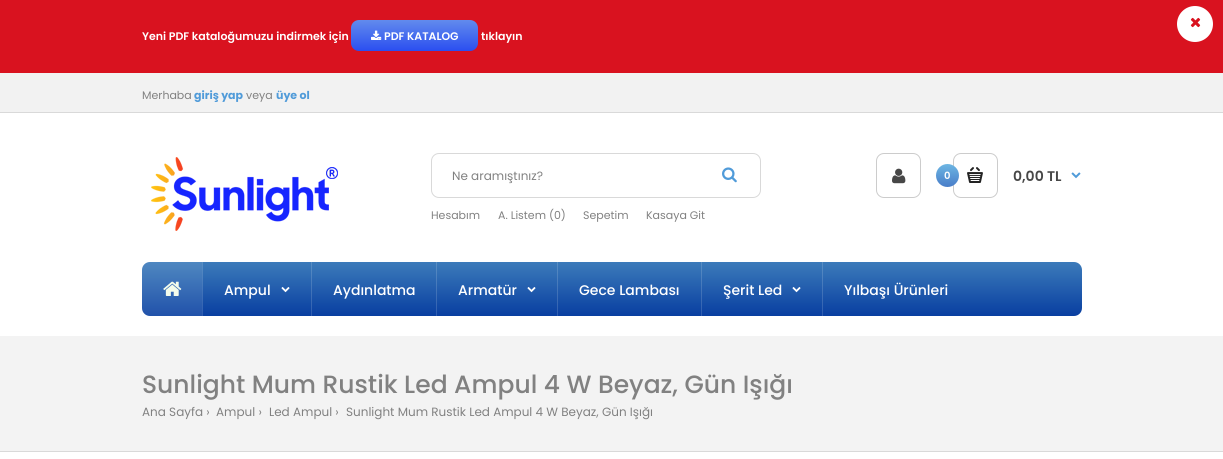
#include <cairo/cairo.h>
#include <math.h>
#include <stddef.h>

typedef struct { double x, y; const char *s; } line_t;
static cairo_t *cr;

static void rgb(unsigned color)
{
	cairo_set_source_rgb(cr, (color >> 16) / 255.0, (color >> 8 & 255) / 255.0, (color & 255) / 255.0);
}

static void rrect(double x, double y, double w, double h, double r)
{
	cairo_new_sub_path(cr);
	cairo_arc(cr, x + w - r, y + h - r, r, 0, M_PI / 2);
	cairo_arc(cr, x + r, y + h - r, r, M_PI / 2, M_PI);
	cairo_arc(cr, x + r, y + r, r, M_PI, 1.5 * M_PI);
	cairo_arc(cr, x + w - r, y + r, r, 1.5 * M_PI, 2 * M_PI);
	cairo_close_path(cr);
}

static void image(const char *path, double x, double y, double w, double h)
{
	cairo_surface_t *image = cairo_image_surface_create_from_png(path);
	cairo_save(cr);
	cairo_set_source_surface(cr, image, x, y);
	cairo_rectangle(cr, x, y, w, h);
	cairo_fill(cr);
	cairo_restore(cr);
	cairo_surface_destroy(image);
}

int main(void) {
	cairo_surface_t *surface = cairo_image_surface_create(CAIRO_FORMAT_RGB24, 1223, 459);
	cr = cairo_create(surface);
	cairo_font_options_t *options = cairo_font_options_create();
	cairo_font_options_set_hint_metrics(options, CAIRO_HINT_METRICS_OFF);
	cairo_font_options_set_hint_style(options, CAIRO_HINT_STYLE_NONE);
	cairo_set_font_options(cr, options);
	cairo_set_miter_limit(cr, 4);
	cairo_pattern_t *gradient;
	rgb(0xffffff);
	cairo_paint(cr);
	rgb(0xd9121f);
	cairo_rectangle(cr, 0, 0, 1223, 73);
	cairo_fill(cr);
	gradient = cairo_pattern_create_linear(415, 20, 415, 51);
	cairo_pattern_add_color_stop_rgba(gradient, 0, 0.169, 0.31, 0.941, 1);
	cairo_pattern_add_color_stop_rgba(gradient, 0, 0.384, 0.545, 0.929, 1);
	cairo_pattern_add_color_stop_rgba(gradient, 0.99, 0.169, 0.31, 0.941, 1);
	cairo_set_source(cr, gradient);
	cairo_pattern_destroy(gradient);
	rrect(351, 20, 127, 31, 8);
	cairo_fill(cr);
	image("img/1.png", 371, 30, 11, 10);
	rgb(0xffffff);
	cairo_arc(cr, 1195, 24, 18, 0, 2 * M_PI);
	cairo_fill(cr);
	image("img/2.png", 1190, 17, 11, 11);
	rgb(0xf2f2f2);
	cairo_rectangle(cr, 0, 73, 1223, 39);
	cairo_fill(cr);
	rgb(0xd9d9d9);
	cairo_rectangle(cr, 0, 112, 1223, 1);
	cairo_fill(cr);
	image("img/3.png", 151, 157, 187, 74);
	rrect(431.5, 153.5, 329, 44, 7.5);
	cairo_set_line_width(cr, 1);
	cairo_stroke(cr);
	image("img/4.png", 722, 167, 15, 16);
	rrect(876.5, 153.5, 44, 44, 7.5);
	rgb(0xcccccc);
	cairo_stroke(cr);
	image("img/5.png", 892, 168, 14, 16);
	rrect(953.5, 153.5, 44, 44, 7.5);
	cairo_stroke(cr);
	gradient = cairo_pattern_create_linear(948, 164, 948, 187);
	cairo_pattern_add_color_stop_rgba(gradient, 0, 0.286, 0.494, 0.788, 1);
	cairo_pattern_add_color_stop_rgba(gradient, 0, 0.427, 0.714, 0.89, 1);
	cairo_pattern_add_color_stop_rgba(gradient, 0.99, 0.286, 0.494, 0.788, 1);
	cairo_set_source(cr, gradient);
	cairo_pattern_destroy(gradient);
	cairo_arc(cr, 947.5, 175.5, 11.5, 0, 2 * M_PI);
	cairo_fill(cr);
	image("img/6.png", 967, 167, 16, 16);
	image("img/7.png", 1071, 172, 10, 7);
	gradient = cairo_pattern_create_linear(612, 262, 612, 316);
	cairo_pattern_add_color_stop_rgba(gradient, 0, 0.035, 0.247, 0.631, 1);
	cairo_pattern_add_color_stop_rgba(gradient, 0, 0.235, 0.482, 0.729, 1);
	cairo_pattern_add_color_stop_rgba(gradient, 0.99, 0.035, 0.247, 0.631, 1);
	cairo_set_source(cr, gradient);
	cairo_pattern_destroy(gradient);
	rrect(142, 262, 940, 54, 8);
	cairo_fill(cr);
	gradient = cairo_pattern_create_linear(612, 262, 612, 316);
	cairo_pattern_add_color_stop_rgba(gradient, 0, 0.18, 0.361, 0.686, 1);
	cairo_pattern_add_color_stop_rgba(gradient, 0, 0.349, 0.561, 0.769, 1);
	cairo_pattern_add_color_stop_rgba(gradient, 0.99, 0.18, 0.361, 0.686, 1);
	cairo_set_source(cr, gradient);
	cairo_pattern_destroy(gradient);
	cairo_rectangle(cr, 822, 262, 1, 54);
	cairo_fill(cr);
	cairo_rectangle(cr, 701, 262, 1, 54);
	cairo_fill(cr);
	cairo_rectangle(cr, 557, 262, 1, 54);
	cairo_fill(cr);
	cairo_rectangle(cr, 436, 262, 1, 54);
	cairo_fill(cr);
	cairo_rectangle(cr, 311, 262, 1, 54);
	cairo_fill(cr);
	cairo_rectangle(cr, 202, 262, 1, 54);
	cairo_fill(cr);
	cairo_set_source_rgba(cr, 1, 1, 1, 0.1);
	cairo_new_path(cr);
	cairo_move_to(cr, 150, 262);
	cairo_line_to(cr, 202, 262);
	cairo_line_to(cr, 202, 316);
	cairo_line_to(cr, 150, 316);
	cairo_curve_to(cr, 145.5, 316, 142, 312.5, 142, 308);
	cairo_line_to(cr, 142, 270);
	cairo_curve_to(cr, 142, 265.5, 145.5, 262, 150, 262);
	cairo_close_path(cr);
	cairo_fill(cr);
	image("img/8.png", 163, 281, 19, 15);
	image("img/9.png", 281, 287, 9, 6);
	image("img/9.png", 527, 287, 9, 6);
	image("img/9.png", 792, 287, 9, 6);
	rgb(0xf3f3f3);
	cairo_rectangle(cr, 0, 336, 1223, 115);
	cairo_fill(cr);
	rgb(0xd9d9d9);
	cairo_rectangle(cr, 0, 451, 1223, 1);
	cairo_fill(cr);
	cairo_select_font_face(cr, "Poppins SemiBold", CAIRO_FONT_SLANT_NORMAL, CAIRO_FONT_WEIGHT_NORMAL);
	cairo_set_font_size(cr, 11);
	rgb(0xffffff);
	{
		static const line_t items[] = {
			{142, 40, "Yeni PDF kataloğumuzu indirmek için"},
			{384, 40, "PDF KATALOG"},
			{481, 40, "tıklayın"},
		};
		for (size_t i = 0; i < sizeof items / sizeof *items; i++) {
			cairo_move_to(cr, items[i].x, items[i].y);
			cairo_show_text(cr, items[i].s);
		}
	}
	cairo_select_font_face(cr, "Poppins", CAIRO_FONT_SLANT_NORMAL, CAIRO_FONT_WEIGHT_NORMAL);
	rgb(0x818181);
	cairo_move_to(cr, 142, 99);
	cairo_show_text(cr, "Merhaba");
	cairo_select_font_face(cr, "Poppins", CAIRO_FONT_SLANT_NORMAL, CAIRO_FONT_WEIGHT_BOLD);
	rgb(0x509bd9);
	cairo_move_to(cr, 194, 99);
	cairo_show_text(cr, "giriş yap");
	cairo_select_font_face(cr, "Poppins", CAIRO_FONT_SLANT_NORMAL, CAIRO_FONT_WEIGHT_NORMAL);
	rgb(0x818181);
	cairo_move_to(cr, 246, 99);
	cairo_show_text(cr, "veya");
	cairo_select_font_face(cr, "Poppins", CAIRO_FONT_SLANT_NORMAL, CAIRO_FONT_WEIGHT_BOLD);
	rgb(0x509bd9);
	cairo_move_to(cr, 276, 99);
	cairo_show_text(cr, "üye ol");
	cairo_select_font_face(cr, "Poppins", CAIRO_FONT_SLANT_NORMAL, CAIRO_FONT_WEIGHT_NORMAL);
	cairo_set_font_size(cr, 12);
	rgb(0x818181);
	cairo_move_to(cr, 452, 180);
	cairo_show_text(cr, "Ne aramıştınız?");
	cairo_set_font_size(cr, 11);
	{
		static const line_t items[] = {
			{431, 219, "Hesabım"},
			{498, 219, "A. Listem (0)"},
			{583, 219, "Sepetim"},
			{646, 219, "Kasaya Git"},
		};
		for (size_t i = 0; i < sizeof items / sizeof *items; i++) {
			cairo_move_to(cr, items[i].x, items[i].y);
			cairo_show_text(cr, items[i].s);
		}
	}
	cairo_select_font_face(cr, "Poppins SemiBold", CAIRO_FONT_SLANT_NORMAL, CAIRO_FONT_WEIGHT_NORMAL);
	cairo_set_font_size(cr, 10);
	rgb(0xffffff);
	cairo_move_to(cr, 944, 179);
	cairo_show_text(cr, "0");
	cairo_set_font_size(cr, 14);
	rgb(0x474747);
	cairo_move_to(cr, 1013, 181);
	cairo_show_text(cr, "0,00 TL");
	cairo_select_font_face(cr, "Poppins Medium", CAIRO_FONT_SLANT_NORMAL, CAIRO_FONT_WEIGHT_NORMAL);
	rgb(0xffffff);
	{
		static const line_t items[] = {
			{224, 295, "Ampul"},
			{333, 295, "Aydınlatma"},
			{458, 295, "Armatür"},
			{579, 295, "Gece Lambası"},
			{723, 295, "Şerit Led"},
			{844, 295, "Yılbaşı Ürünleri"},
		};
		for (size_t i = 0; i < sizeof items / sizeof *items; i++) {
			cairo_move_to(cr, items[i].x, items[i].y);
			cairo_show_text(cr, items[i].s);
		}
	}
	cairo_set_font_size(cr, 25);
	rgb(0x818181);
	cairo_move_to(cr, 142, 393);
	cairo_show_text(cr, "Sunlight Mum Rustik Led Ampul 4 W Beyaz, Gün Işığı");
	cairo_select_font_face(cr, "Poppins", CAIRO_FONT_SLANT_NORMAL, CAIRO_FONT_WEIGHT_NORMAL);
	cairo_set_font_size(cr, 12);
	{
		static const line_t items[] = {
			{142, 416, "Ana Sayfa ›"},
			{216, 416, "Ampul ›"},
			{269, 416, "Led Ampul ›"},
			{346, 416, "Sunlight Mum Rustik Led Ampul 4 W Beyaz, Gün Işığı"},
		};
		for (size_t i = 0; i < sizeof items / sizeof *items; i++) {
			cairo_move_to(cr, items[i].x, items[i].y);
			cairo_show_text(cr, items[i].s);
		}
	}
	cairo_surface_write_to_png(surface, "page.png");
	cairo_font_options_destroy(options);
	cairo_destroy(cr);
	cairo_surface_destroy(surface);
	return 0;
}
